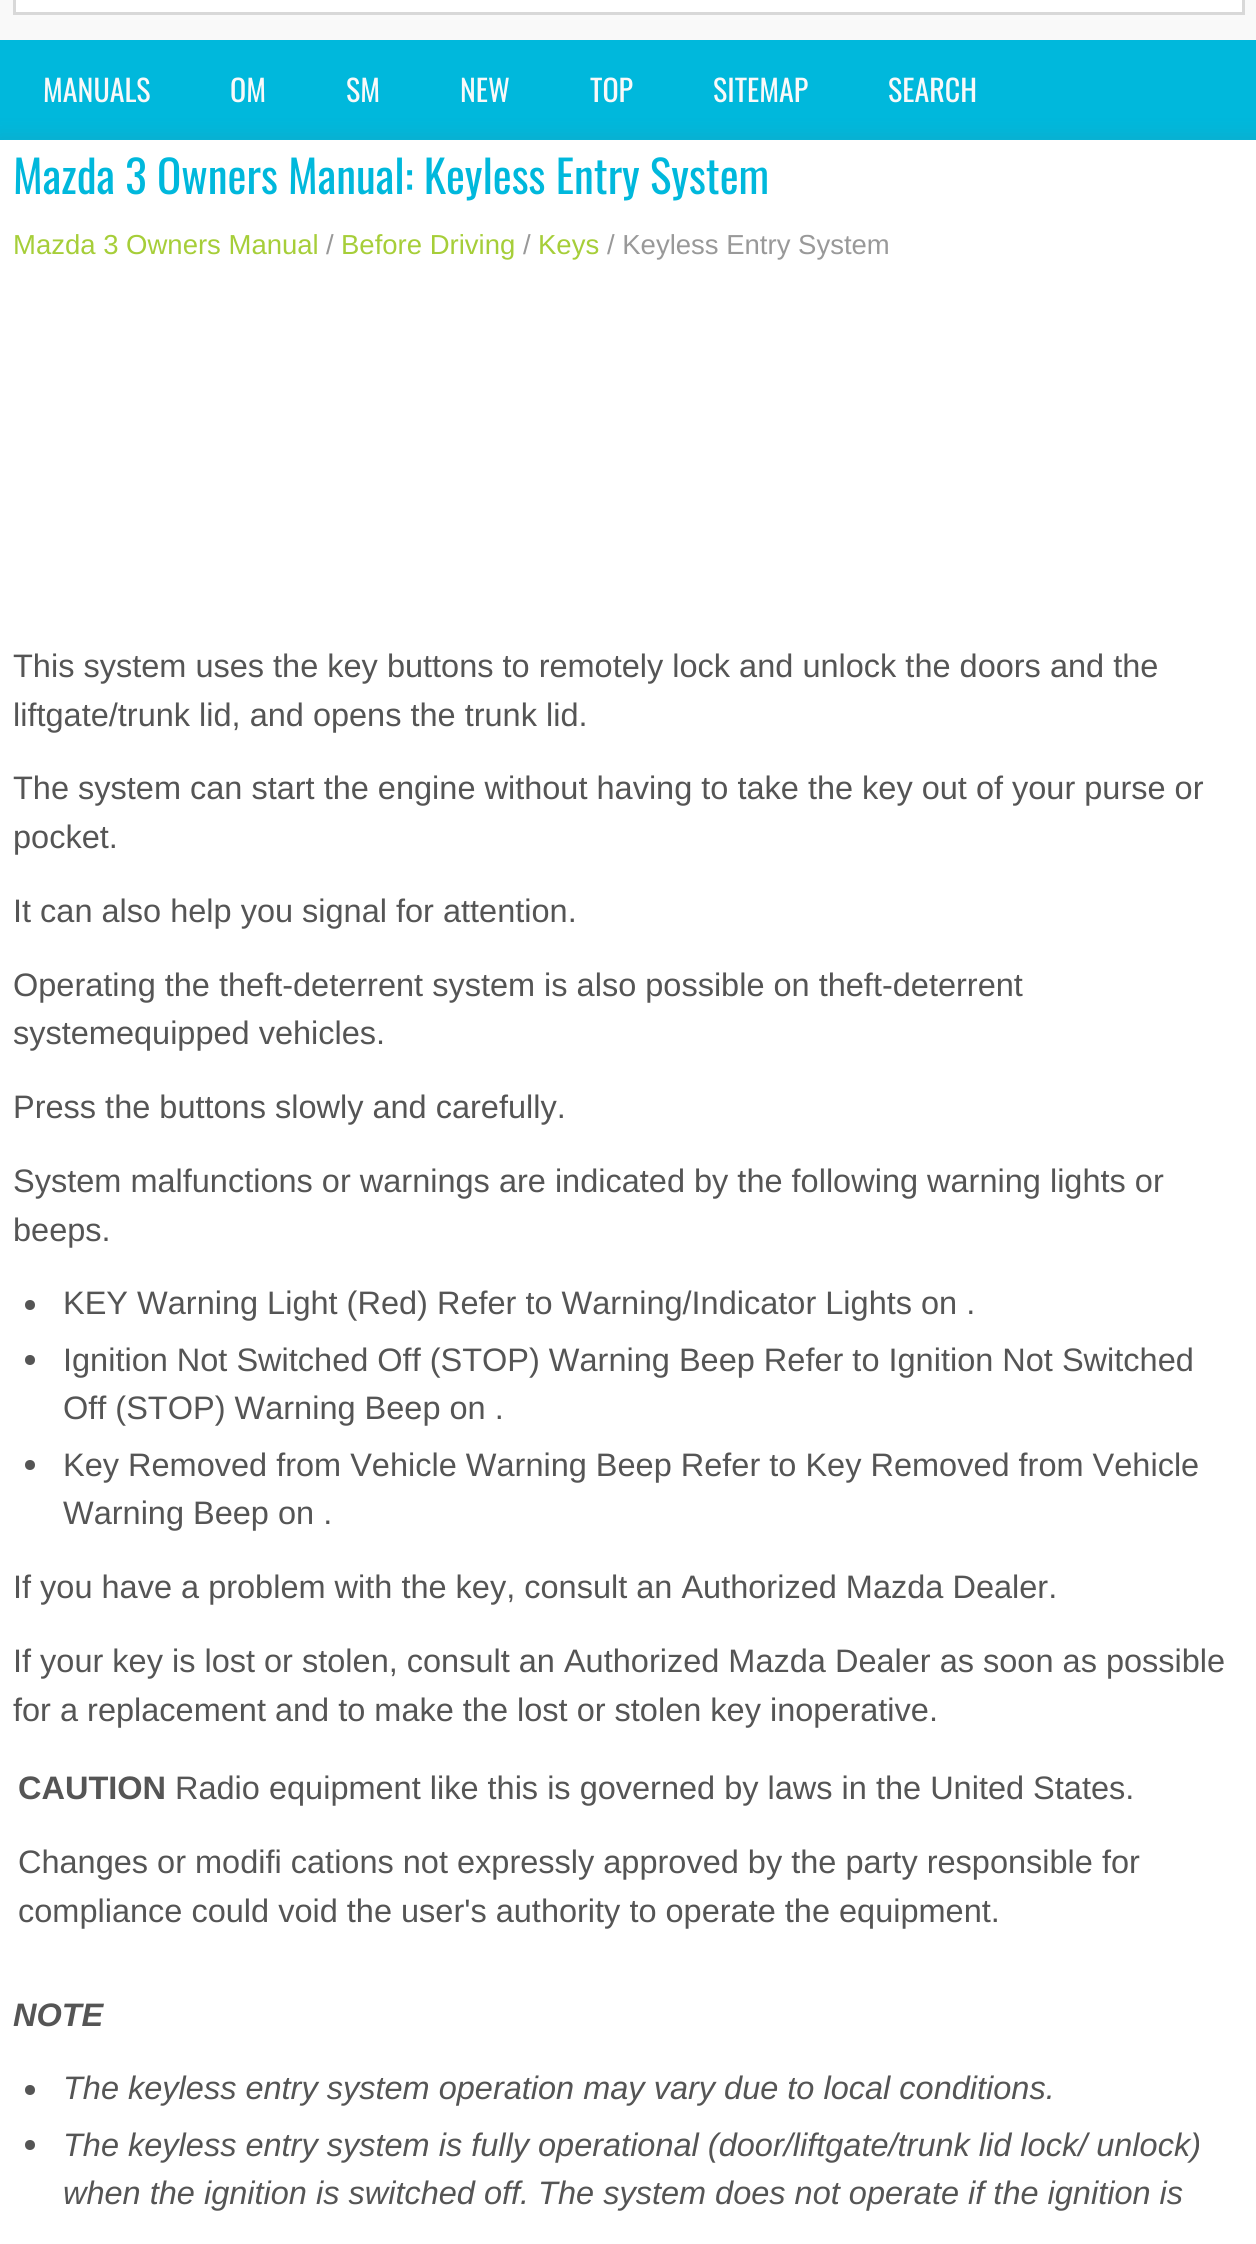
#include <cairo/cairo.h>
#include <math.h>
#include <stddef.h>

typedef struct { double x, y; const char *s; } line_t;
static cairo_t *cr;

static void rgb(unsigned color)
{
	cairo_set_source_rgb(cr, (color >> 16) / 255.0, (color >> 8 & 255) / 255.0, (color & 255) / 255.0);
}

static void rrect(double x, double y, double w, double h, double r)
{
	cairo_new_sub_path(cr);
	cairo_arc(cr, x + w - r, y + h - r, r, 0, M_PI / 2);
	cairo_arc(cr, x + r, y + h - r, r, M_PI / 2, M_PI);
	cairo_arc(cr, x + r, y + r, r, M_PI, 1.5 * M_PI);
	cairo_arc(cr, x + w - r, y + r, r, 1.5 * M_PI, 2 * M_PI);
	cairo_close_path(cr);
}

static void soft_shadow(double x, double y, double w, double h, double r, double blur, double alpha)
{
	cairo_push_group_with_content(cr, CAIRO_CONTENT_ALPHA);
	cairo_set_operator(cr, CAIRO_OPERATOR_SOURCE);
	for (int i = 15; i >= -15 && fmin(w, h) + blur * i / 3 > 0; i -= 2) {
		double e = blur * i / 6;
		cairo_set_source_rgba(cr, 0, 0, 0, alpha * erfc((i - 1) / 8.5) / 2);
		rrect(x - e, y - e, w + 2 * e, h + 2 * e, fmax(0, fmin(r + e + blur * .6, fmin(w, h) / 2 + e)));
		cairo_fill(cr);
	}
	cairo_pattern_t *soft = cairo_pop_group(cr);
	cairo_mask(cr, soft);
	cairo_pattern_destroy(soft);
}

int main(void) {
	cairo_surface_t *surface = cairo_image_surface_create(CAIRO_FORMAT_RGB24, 1256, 2244);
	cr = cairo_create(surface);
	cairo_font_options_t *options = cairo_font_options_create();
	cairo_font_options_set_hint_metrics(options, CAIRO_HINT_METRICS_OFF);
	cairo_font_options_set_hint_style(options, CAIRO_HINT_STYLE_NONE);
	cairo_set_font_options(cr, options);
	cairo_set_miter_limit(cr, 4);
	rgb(0x00b8dc);
	cairo_paint(cr);
	rgb(0xf9f9f9);
	cairo_rectangle(cr, 0, 0, 1256, 40);
	cairo_fill(cr);
	rgb(0xffffff);
	cairo_rectangle(cr, 14.5, -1.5, 1229, 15);
	cairo_fill_preserve(cr);
	rgb(0xd8d8d8);
	cairo_set_line_width(cr, 3);
	cairo_stroke(cr);
	rgb(0x606060);
	soft_shadow(-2, 138, 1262, 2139, 0, 11, 0.15);
	rgb(0xffffff);
	cairo_rectangle(cr, 0, 140, 1256, 2104);
	cairo_fill(cr);
	rgb(0x555555);
	cairo_arc(cr, 30, 1305, 5, 0, 2 * M_PI);
	cairo_fill(cr);
	cairo_arc(cr, 30, 1360, 5, 0, 2 * M_PI);
	cairo_fill(cr);
	cairo_arc(cr, 30, 1465, 5, 0, 2 * M_PI);
	cairo_fill(cr);
	cairo_arc(cr, 30, 2090, 5, 0, 2 * M_PI);
	cairo_fill(cr);
	cairo_arc(cr, 30, 2145, 5, 0, 2 * M_PI);
	cairo_fill(cr);
	cairo_select_font_face(cr, "Oswald", CAIRO_FONT_SLANT_NORMAL, CAIRO_FONT_WEIGHT_NORMAL);
	cairo_set_font_size(cr, 30);
	rgb(0xf9f9f9);
	{
		static const line_t items[] = {
			{43, 102, "MANUALS"},
			{230, 102, "OM"},
			{346, 102, "SM"},
			{460, 102, "NEW"},
			{590, 102, "TOP"},
			{713, 102, "SITEMAP"},
			{888, 102, "SEARCH"},
		};
		for (size_t i = 0; i < sizeof items / sizeof *items; i++) {
			cairo_move_to(cr, items[i].x, items[i].y);
			cairo_show_text(cr, items[i].s);
		}
	}
	cairo_set_font_size(cr, 45);
	rgb(0x00b8dc);
	cairo_move_to(cr, 13, 194);
	cairo_show_text(cr, "Mazda 3 Owners Manual: Keyless Entry System");
	cairo_select_font_face(cr, "Liberation Sans", CAIRO_FONT_SLANT_NORMAL, CAIRO_FONT_WEIGHT_NORMAL);
	cairo_set_font_size(cr, 27.5);
	rgb(0xa6ce39);
	cairo_move_to(cr, 13, 254);
	cairo_show_text(cr, "Mazda 3 Owners Manual");
	rgb(0x999999);
	cairo_move_to(cr, 326, 254);
	cairo_show_text(cr, "/");
	rgb(0xa6ce39);
	cairo_move_to(cr, 341, 254);
	cairo_show_text(cr, "Before Driving");
	rgb(0x999999);
	cairo_move_to(cr, 523, 254);
	cairo_show_text(cr, "/");
	rgb(0xa6ce39);
	cairo_move_to(cr, 538, 254);
	cairo_show_text(cr, "Keys");
	rgb(0x999999);
	cairo_move_to(cr, 607, 254);
	cairo_show_text(cr, "/ Keyless Entry System");
	cairo_set_font_size(cr, 32.5);
	rgb(0x555555);
	{
		static const line_t items[] = {
			{13, 677, "This system uses the key buttons to remotely lock and unlock the doors and the"},
			{13, 726, "liftgate/trunk lid, and opens the trunk lid."},
			{13, 799, "The system can start the engine without having to take the key out of your purse or"},
			{13, 848, "pocket."},
			{13, 922, "It can also help you signal for attention."},
			{13, 996, "Operating the theft-deterrent system is also possible on theft-deterrent"},
			{13, 1044, "systemequipped vehicles."},
			{13, 1118, "Press the buttons slowly and carefully."},
			{13, 1192, "System malfunctions or warnings are indicated by the following warning lights or"},
			{13, 1241, "beeps."},
			{63, 1314, "KEY Warning Light (Red) Refer to Warning/Indicator Lights on ."},
			{63, 1371, "Ignition Not Switched Off (STOP) Warning Beep Refer to Ignition Not Switched"},
			{63, 1419, "Off (STOP) Warning Beep on ."},
			{63, 1476, "Key Removed from Vehicle Warning Beep Refer to Key Removed from Vehicle"},
			{63, 1524, "Warning Beep on ."},
			{13, 1598, "If you have a problem with the key, consult an Authorized Mazda Dealer."},
			{13, 1672, "If your key is lost or stolen, consult an Authorized Mazda Dealer as soon as possible"},
			{13, 1721, "for a replacement and to make the lost or stolen key inoperative."},
		};
		for (size_t i = 0; i < sizeof items / sizeof *items; i++) {
			cairo_move_to(cr, items[i].x, items[i].y);
			cairo_show_text(cr, items[i].s);
		}
	}
	cairo_select_font_face(cr, "Liberation Sans", CAIRO_FONT_SLANT_NORMAL, CAIRO_FONT_WEIGHT_BOLD);
	cairo_move_to(cr, 18, 1799);
	cairo_show_text(cr, "CAUTION");
	cairo_select_font_face(cr, "Liberation Sans", CAIRO_FONT_SLANT_NORMAL, CAIRO_FONT_WEIGHT_NORMAL);
	{
		static const line_t items[] = {
			{175, 1799, "Radio equipment like this is governed by laws in the United States."},
			{18, 1873, "Changes or modifi cations not expressly approved by the party responsible for"},
			{18, 1922, "compliance could void the user's authority to operate the equipment."},
		};
		for (size_t i = 0; i < sizeof items / sizeof *items; i++) {
			cairo_move_to(cr, items[i].x, items[i].y);
			cairo_show_text(cr, items[i].s);
		}
	}
	cairo_select_font_face(cr, "Liberation Sans", CAIRO_FONT_SLANT_ITALIC, CAIRO_FONT_WEIGHT_BOLD);
	cairo_move_to(cr, 13, 2026);
	cairo_show_text(cr, "NOTE");
	cairo_select_font_face(cr, "Liberation Sans", CAIRO_FONT_SLANT_ITALIC, CAIRO_FONT_WEIGHT_NORMAL);
	{
		static const line_t items[] = {
			{63, 2099, "The keyless entry system operation may vary due to local conditions."},
			{63, 2156, "The keyless entry system is fully operational (door/liftgate/trunk lid lock/ unlock)"},
			{63, 2204, "when the ignition is switched off. The system does not operate if the ignition is"},
		};
		for (size_t i = 0; i < sizeof items / sizeof *items; i++) {
			cairo_move_to(cr, items[i].x, items[i].y);
			cairo_show_text(cr, items[i].s);
		}
	}
	cairo_surface_write_to_png(surface, "page.png");
	cairo_font_options_destroy(options);
	cairo_destroy(cr);
	cairo_surface_destroy(surface);
	return 0;
}
